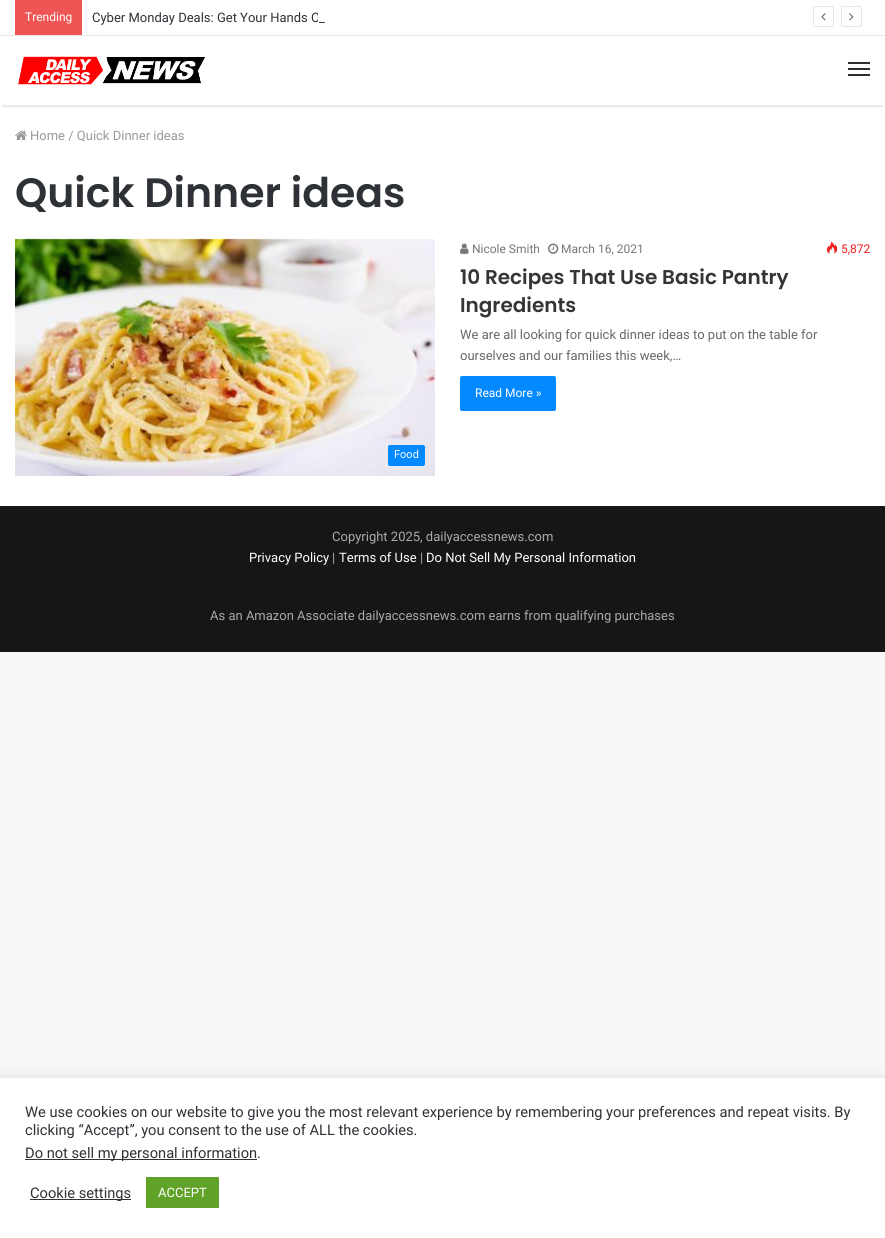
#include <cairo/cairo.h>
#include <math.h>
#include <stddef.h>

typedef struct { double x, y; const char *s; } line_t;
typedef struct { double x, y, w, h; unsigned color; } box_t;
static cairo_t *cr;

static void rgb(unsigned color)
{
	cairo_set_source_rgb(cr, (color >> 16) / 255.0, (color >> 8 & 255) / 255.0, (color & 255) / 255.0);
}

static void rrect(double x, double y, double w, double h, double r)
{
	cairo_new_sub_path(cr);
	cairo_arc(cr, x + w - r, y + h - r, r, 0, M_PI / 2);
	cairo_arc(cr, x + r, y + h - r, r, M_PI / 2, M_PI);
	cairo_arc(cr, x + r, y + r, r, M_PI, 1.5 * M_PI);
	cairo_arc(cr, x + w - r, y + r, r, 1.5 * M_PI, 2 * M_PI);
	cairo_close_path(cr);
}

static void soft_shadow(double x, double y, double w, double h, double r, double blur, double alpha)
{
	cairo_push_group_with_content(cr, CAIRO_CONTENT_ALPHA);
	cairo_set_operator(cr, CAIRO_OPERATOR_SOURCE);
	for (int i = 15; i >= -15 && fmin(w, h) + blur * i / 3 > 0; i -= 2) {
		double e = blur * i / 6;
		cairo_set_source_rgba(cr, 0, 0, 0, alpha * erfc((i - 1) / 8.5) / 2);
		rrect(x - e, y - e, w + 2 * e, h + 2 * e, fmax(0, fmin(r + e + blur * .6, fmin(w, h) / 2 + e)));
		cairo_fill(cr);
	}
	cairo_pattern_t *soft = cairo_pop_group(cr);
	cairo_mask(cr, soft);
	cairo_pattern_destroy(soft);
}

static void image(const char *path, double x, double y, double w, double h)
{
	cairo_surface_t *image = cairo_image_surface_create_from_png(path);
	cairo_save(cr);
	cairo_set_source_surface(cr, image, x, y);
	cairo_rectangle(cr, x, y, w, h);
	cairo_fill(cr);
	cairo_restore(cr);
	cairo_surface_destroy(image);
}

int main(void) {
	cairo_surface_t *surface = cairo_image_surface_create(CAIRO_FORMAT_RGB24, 885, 1238);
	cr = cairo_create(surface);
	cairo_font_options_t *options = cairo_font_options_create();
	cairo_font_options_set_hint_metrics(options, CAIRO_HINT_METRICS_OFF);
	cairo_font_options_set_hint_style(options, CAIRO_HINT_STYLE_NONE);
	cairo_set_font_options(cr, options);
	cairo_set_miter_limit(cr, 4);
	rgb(0xf7f7f7);
	cairo_paint(cr);
	{
		static const box_t items[] = {
			{0, 0, 885, 506, 0xffffff},
			{0, 35, 885, 1, 0xe6e6e6},
			{15, 0, 67, 35, 0xf05555},
		};
		for (size_t i = 0; i < sizeof items / sizeof *items; i++) {
			rgb(items[i].color);
			cairo_rectangle(cr, items[i].x, items[i].y, items[i].w, items[i].h);
			cairo_fill(cr);
		}
	}
	rrect(813.5, 6.5, 20, 20, 1.5);
	rgb(0xe6e6e6);
	cairo_set_line_width(cr, 1);
	cairo_stroke(cr);
	image("img/1.png", 821, 13, 5, 8);
	rrect(841.5, 6.5, 20, 20, 1.5);
	cairo_stroke(cr);
	image("img/2.png", 849, 13, 5, 8);
	cairo_save(cr);
	cairo_rectangle(cr, 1, 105, 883, 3);
	cairo_clip(cr);
	rgb(0x000000);
	soft_shadow(2, 42, 881, 65, 0, 1, 0.1);
	cairo_restore(cr);
	image("img/3.png", 18, 56, 187, 29);
	{
		static const box_t items[] = {
			{848, 68, 22, 2, 0x2c2f34},
			{848, 62, 22, 2, 0x2c2f34},
			{848, 74, 22, 2, 0x2c2f34},
		};
		for (size_t i = 0; i < sizeof items / sizeof *items; i++) {
			rgb(items[i].color);
			cairo_rectangle(cr, items[i].x, items[i].y, items[i].w, items[i].h);
			cairo_fill(cr);
		}
	}
	image("img/4.png", 15, 130, 12, 10);
	image("img/5.png", 460, 243, 9, 11);
	image("img/6.png", 548, 243, 11, 11);
	image("img/7.png", 826, 241, 12, 13);
	rgb(0x0389ff);
	rrect(460, 376, 96, 35, 2);
	cairo_fill(cr);
	image("img/8.png", 15, 238, 420, 238);
	rrect(388, 445, 37, 21, 2);
	cairo_fill(cr);
	rgb(0x161619);
	cairo_rectangle(cr, 0, 506, 885, 146);
	cairo_fill(cr);
	rgb(0xacabab);
	soft_shadow(0, 1077, 885, 160, 0, 5, 0.3);
	{
		static const box_t items[] = {
			{0, 1078, 885, 160, 0xffffff},
			{25, 1159, 232, 1, 0x333333},
			{30, 1199, 101, 1, 0x333333},
			{146, 1177, 73, 31, 0x61a229},
		};
		for (size_t i = 0; i < sizeof items / sizeof *items; i++) {
			rgb(items[i].color);
			cairo_rectangle(cr, items[i].x, items[i].y, items[i].w, items[i].h);
			cairo_fill(cr);
		}
	}
	cairo_select_font_face(cr, "Roboto", CAIRO_FONT_SLANT_NORMAL, CAIRO_FONT_WEIGHT_NORMAL);
	cairo_set_font_size(cr, 12);
	rgb(0xffffff);
	cairo_move_to(cr, 25, 21);
	cairo_show_text(cr, "Trending");
	cairo_set_font_size(cr, 13);
	rgb(0x2e3136);
	cairo_move_to(cr, 92, 22);
	cairo_show_text(cr, "Cyber Monday Deals: Get Your Hands O");
	rgb(0xffffff);
	cairo_rectangle(cr, 318, 13, 2, 9);
	cairo_fill(cr);
	rgb(0x2e3136);
	cairo_move_to(cr, 319, 22);
	cairo_show_text(cr, "_");
	rgb(0x9a9a9a);
	cairo_move_to(cr, 30, 140);
	cairo_show_text(cr, "Home / Quick Dinner ideas");
	cairo_select_font_face(cr, "Poppins SemiBold", CAIRO_FONT_SLANT_NORMAL, CAIRO_FONT_WEIGHT_NORMAL);
	cairo_set_font_size(cr, 41);
	rgb(0x2e3136);
	cairo_move_to(cr, 15, 207);
	cairo_show_text(cr, "Quick Dinner ideas");
	cairo_select_font_face(cr, "Roboto", CAIRO_FONT_SLANT_NORMAL, CAIRO_FONT_WEIGHT_NORMAL);
	cairo_set_font_size(cr, 12);
	rgb(0x777777);
	cairo_move_to(cr, 472, 253);
	cairo_show_text(cr, "Nicole Smith");
	cairo_move_to(cr, 561, 253);
	cairo_show_text(cr, "March 16, 2021");
	rgb(0xf12020);
	cairo_move_to(cr, 841, 253);
	cairo_show_text(cr, "5,872");
	cairo_select_font_face(cr, "Poppins SemiBold", CAIRO_FONT_SLANT_NORMAL, CAIRO_FONT_WEIGHT_NORMAL);
	cairo_set_font_size(cr, 20);
	rgb(0x353535);
	cairo_move_to(cr, 460, 284);
	cairo_show_text(cr, "10 Recipes That Use Basic Pantry");
	cairo_move_to(cr, 460, 312);
	cairo_show_text(cr, "Ingredients");
	cairo_select_font_face(cr, "Roboto", CAIRO_FONT_SLANT_NORMAL, CAIRO_FONT_WEIGHT_NORMAL);
	cairo_set_font_size(cr, 13);
	rgb(0x686868);
	cairo_move_to(cr, 460, 339);
	cairo_show_text(cr, "We are all looking for quick dinner ideas to put on the table for");
	cairo_move_to(cr, 460, 360);
	cairo_show_text(cr, "ourselves and our families this week,…");
	cairo_set_font_size(cr, 12);
	rgb(0xffffff);
	cairo_move_to(cr, 475, 397);
	cairo_show_text(cr, "Read More »");
	cairo_set_font_size(cr, 11);
	cairo_move_to(cr, 394, 458);
	cairo_show_text(cr, "Food");
	cairo_set_font_size(cr, 13);
	rgb(0xaaaaaa);
	cairo_move_to(cr, 332, 541);
	cairo_show_text(cr, "Copyright 2025, dailyaccessnews.com");
	rgb(0xffffff);
	cairo_move_to(cr, 249, 562);
	cairo_show_text(cr, "Privacy Policy");
	rgb(0xaaaaaa);
	cairo_move_to(cr, 332, 562);
	cairo_show_text(cr, "|");
	rgb(0xffffff);
	cairo_move_to(cr, 339, 562);
	cairo_show_text(cr, "Terms of Use");
	rgb(0xaaaaaa);
	cairo_move_to(cr, 420, 562);
	cairo_show_text(cr, "|");
	rgb(0xffffff);
	cairo_move_to(cr, 426, 562);
	cairo_show_text(cr, "Do Not Sell My Personal Information");
	rgb(0xaaaaaa);
	cairo_move_to(cr, 210, 620);
	cairo_show_text(cr, "As an Amazon Associate dailyaccessnews.com earns from qualifying purchases");
	cairo_set_font_size(cr, 14.67);
	rgb(0x2e3136);
	{
		static const line_t items[] = {
			{25, 1117, "We use cookies on our website to give you the most relevant experience by remembering your preferences and repeat visits. By"},
			{25, 1135, "clicking “Accept”, you consent to the use of ALL the cookies."},
			{25, 1158, "Do not sell my personal information."},
			{30, 1198, "Cookie settings"},
		};
		for (size_t i = 0; i < sizeof items / sizeof *items; i++) {
			cairo_move_to(cr, items[i].x, items[i].y);
			cairo_show_text(cr, items[i].s);
		}
	}
	cairo_set_font_size(cr, 13);
	rgb(0xffffff);
	cairo_move_to(cr, 158, 1197);
	cairo_show_text(cr, "ACCEPT");
	cairo_surface_write_to_png(surface, "page.png");
	cairo_font_options_destroy(options);
	cairo_destroy(cr);
	cairo_surface_destroy(surface);
	return 0;
}
